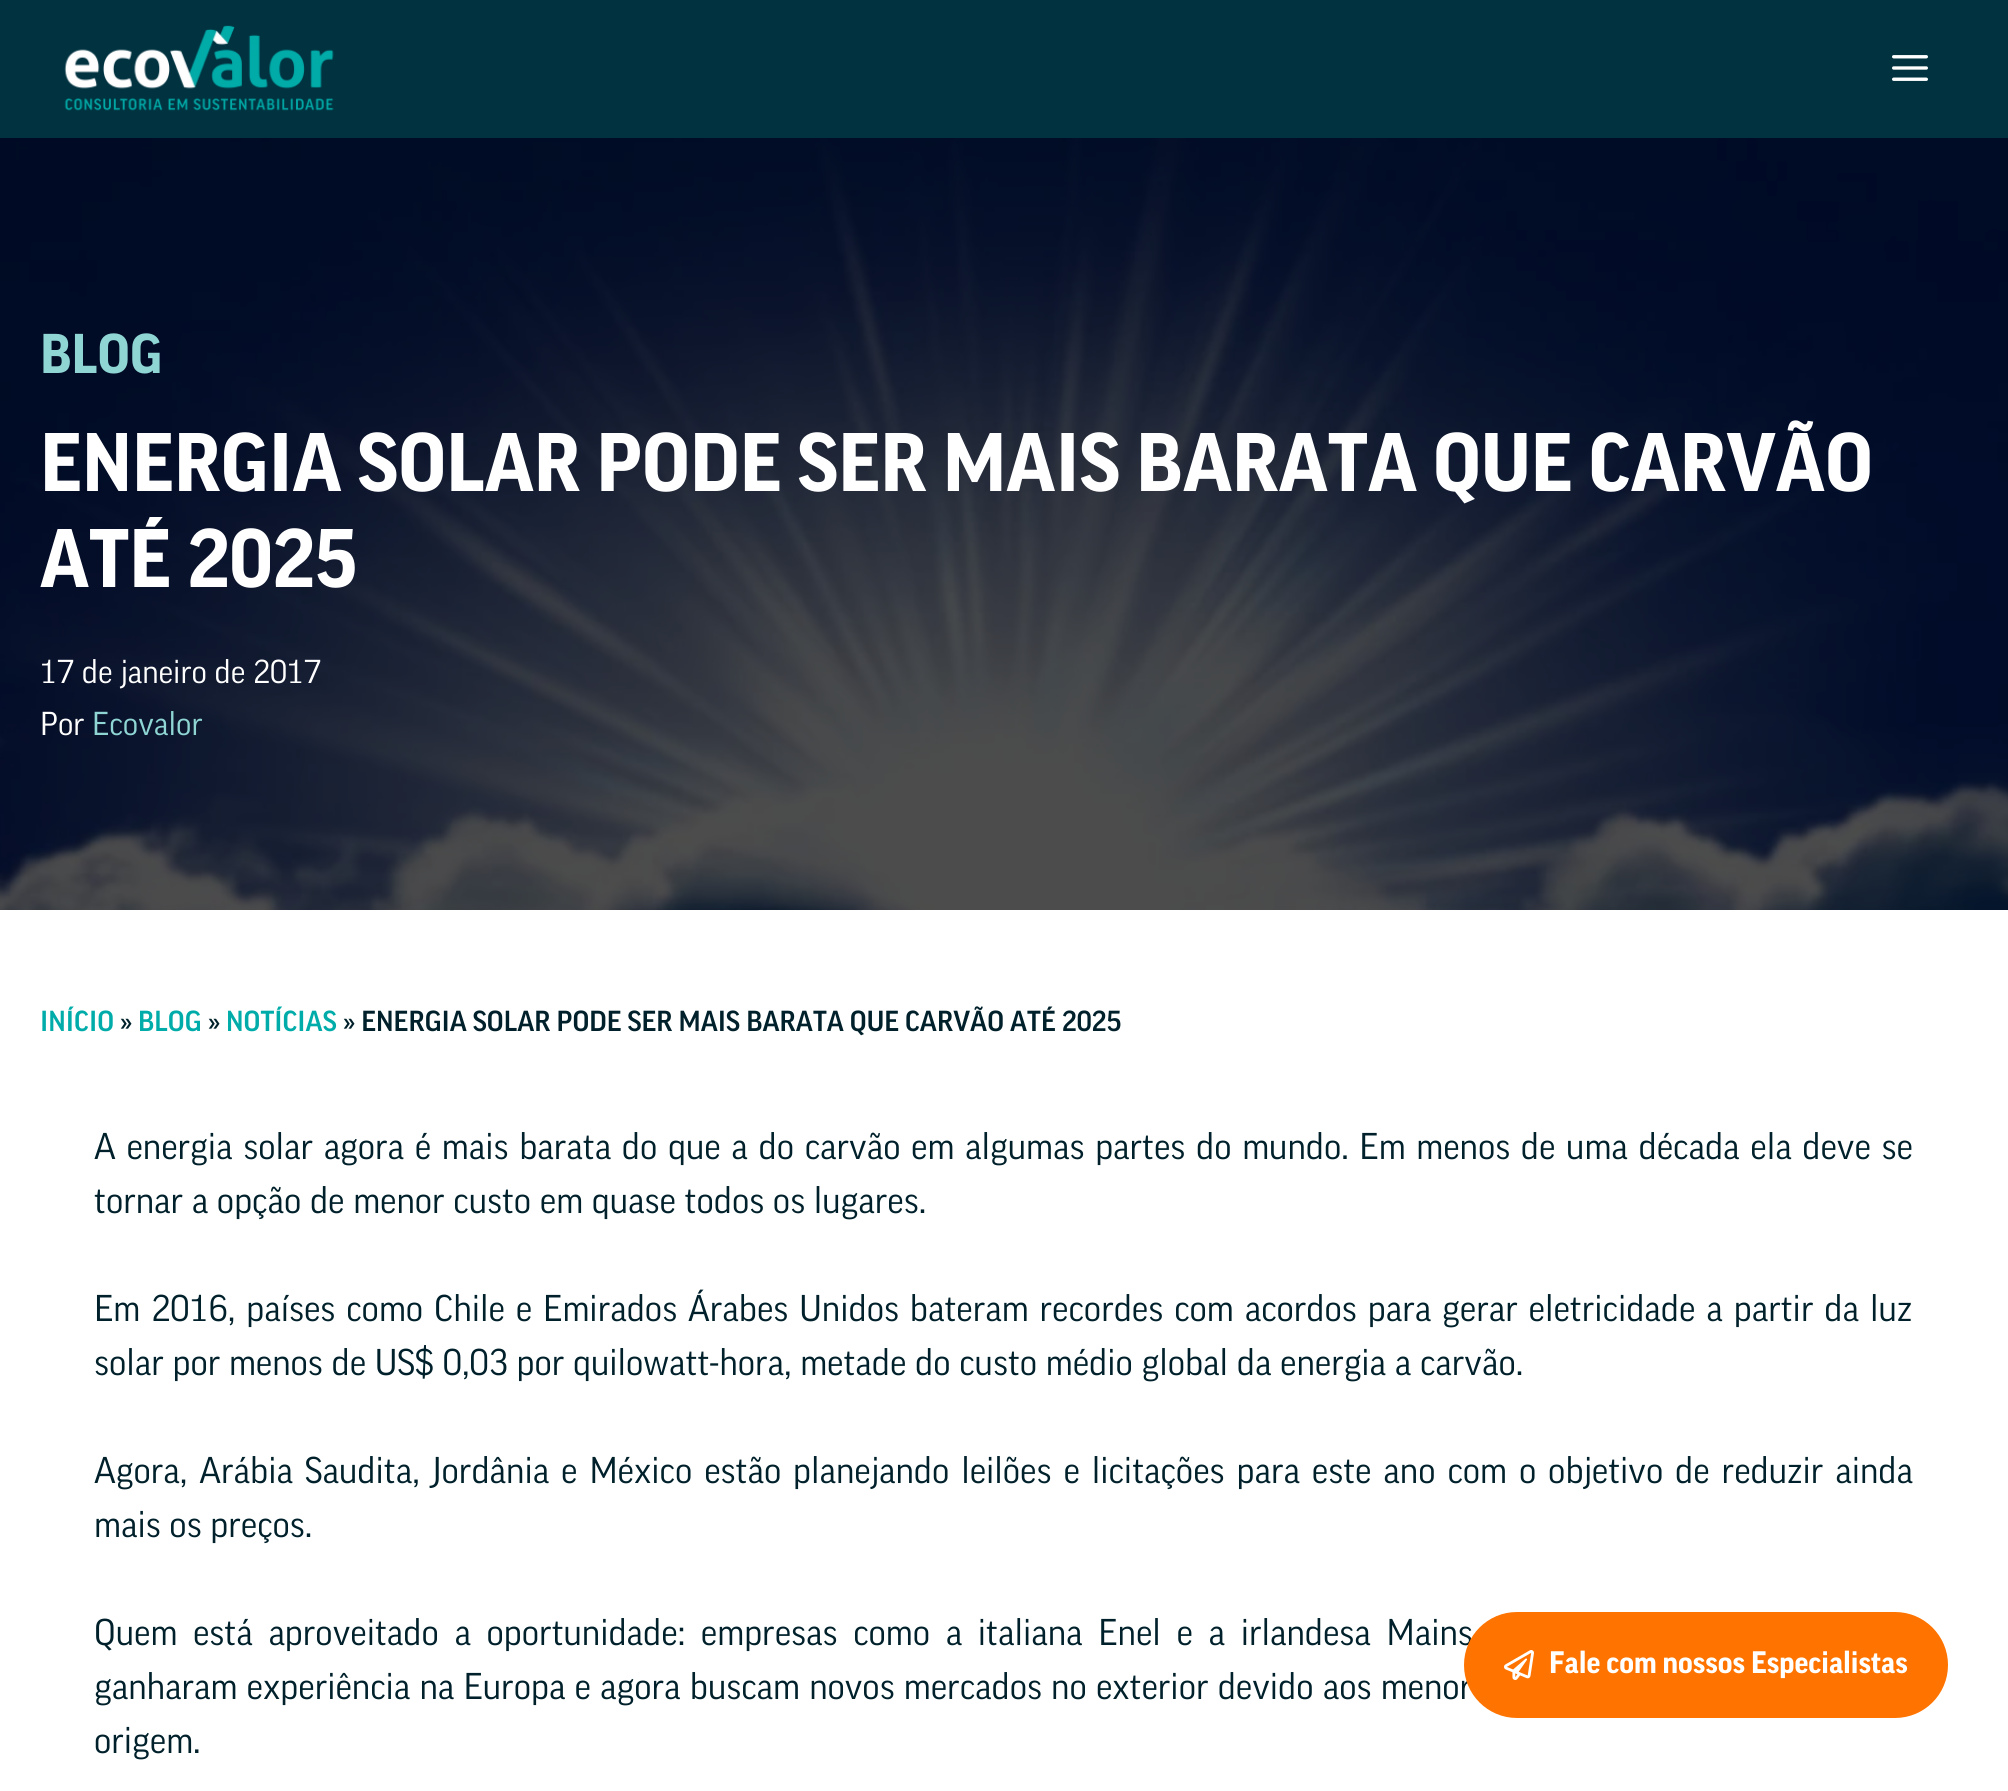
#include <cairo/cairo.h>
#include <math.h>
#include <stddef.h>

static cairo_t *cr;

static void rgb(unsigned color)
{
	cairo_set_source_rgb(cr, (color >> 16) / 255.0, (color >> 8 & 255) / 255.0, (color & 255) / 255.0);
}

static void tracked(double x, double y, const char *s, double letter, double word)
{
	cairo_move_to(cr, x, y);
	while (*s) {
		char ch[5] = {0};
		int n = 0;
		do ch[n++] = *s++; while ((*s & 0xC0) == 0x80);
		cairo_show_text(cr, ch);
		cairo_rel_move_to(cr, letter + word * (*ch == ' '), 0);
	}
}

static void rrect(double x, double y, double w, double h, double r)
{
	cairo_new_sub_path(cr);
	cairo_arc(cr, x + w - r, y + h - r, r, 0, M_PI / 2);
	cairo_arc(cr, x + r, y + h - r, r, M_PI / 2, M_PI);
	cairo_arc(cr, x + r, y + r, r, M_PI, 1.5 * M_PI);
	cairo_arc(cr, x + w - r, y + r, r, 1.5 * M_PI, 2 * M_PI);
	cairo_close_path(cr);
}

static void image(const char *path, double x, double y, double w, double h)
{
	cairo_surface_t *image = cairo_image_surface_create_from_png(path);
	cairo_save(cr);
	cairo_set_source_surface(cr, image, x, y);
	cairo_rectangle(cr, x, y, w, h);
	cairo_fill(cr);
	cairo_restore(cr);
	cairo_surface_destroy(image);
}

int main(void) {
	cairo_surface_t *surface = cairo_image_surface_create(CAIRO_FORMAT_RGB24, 2008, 1791);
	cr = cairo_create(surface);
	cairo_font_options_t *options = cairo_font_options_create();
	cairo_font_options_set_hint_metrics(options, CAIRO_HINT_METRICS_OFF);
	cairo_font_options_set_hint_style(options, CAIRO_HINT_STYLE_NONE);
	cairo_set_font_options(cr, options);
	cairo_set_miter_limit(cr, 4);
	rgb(0xffffff);
	cairo_paint(cr);
	rgb(0x003240);
	cairo_rectangle(cr, 0, 0, 2008, 138);
	cairo_fill(cr);
	image("img/1.png", 64, 25, 270, 86);
	image("img/2.png", 1892, 55, 36, 26);
	rgb(0x000000);
	cairo_rectangle(cr, 0, 138, 2008, 772);
	cairo_fill(cr);
	image("img/3.png", 0, 138, 2008, 772);
	cairo_select_font_face(cr, "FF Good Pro", CAIRO_FONT_SLANT_NORMAL, CAIRO_FONT_WEIGHT_BOLD);
	cairo_set_font_size(cr, 54);
	rgb(0x8ed5d4);
	cairo_move_to(cr, 40, 373);
	cairo_show_text(cr, "BLOG");
	cairo_set_font_size(cr, 80);
	rgb(0xffffff);
	cairo_move_to(cr, 40, 491);
	cairo_show_text(cr, "ENERGIA SOLAR PODE SER MAIS BARATA QUE CARVÃO");
	cairo_move_to(cr, 40, 587);
	cairo_show_text(cr, "ATÉ 2025");
	cairo_select_font_face(cr, "FF Good Pro", CAIRO_FONT_SLANT_NORMAL, CAIRO_FONT_WEIGHT_NORMAL);
	cairo_set_font_size(cr, 32);
	cairo_move_to(cr, 40, 683);
	cairo_show_text(cr, "17 de janeiro de 2017");
	cairo_move_to(cr, 40, 735);
	cairo_show_text(cr, "Por");
	rgb(0x8ed5d4);
	cairo_move_to(cr, 92, 735);
	cairo_show_text(cr, "Ecovalor");
	cairo_select_font_face(cr, "FF Good Pro Medium", CAIRO_FONT_SLANT_NORMAL, CAIRO_FONT_WEIGHT_NORMAL);
	cairo_set_font_size(cr, 28);
	rgb(0x00aca9);
	cairo_move_to(cr, 40, 1031);
	cairo_show_text(cr, "INÍCIO");
	rgb(0x00212b);
	cairo_move_to(cr, 120, 1031);
	cairo_show_text(cr, "»");
	rgb(0x00aca9);
	cairo_move_to(cr, 138, 1031);
	cairo_show_text(cr, "BLOG");
	rgb(0x00212b);
	cairo_move_to(cr, 208, 1031);
	cairo_show_text(cr, "»");
	rgb(0x00aca9);
	cairo_move_to(cr, 226, 1031);
	cairo_show_text(cr, "NOTÍCIAS");
	rgb(0x00212b);
	cairo_move_to(cr, 343, 1031);
	cairo_show_text(cr, "» ENERGIA SOLAR PODE SER MAIS BARATA QUE CARVÃO ATÉ 2025");
	cairo_select_font_face(cr, "FF Good Pro", CAIRO_FONT_SLANT_NORMAL, CAIRO_FONT_WEIGHT_NORMAL);
	cairo_set_font_size(cr, 36);
	tracked(94, 1159, "A energia solar agora é mais barata do que a do carvão em algumas partes do mundo. Em menos de uma década ela deve se", 0, 2);
	cairo_move_to(cr, 94, 1213);
	cairo_show_text(cr, "tornar a opção de menor custo em quase todos os lugares.");
	tracked(94, 1321, "Em 2016, países como Chile e Emirados Árabes Unidos bateram recordes com acordos para gerar eletricidade a partir da luz", 0, 2.25);
	cairo_move_to(cr, 94, 1375);
	cairo_show_text(cr, "solar por menos de US$ 0,03 por quilowatt-hora, metade do custo médio global da energia a carvão.");
	tracked(94, 1483, "Agora, Arábia Saudita, Jordânia e México estão planejando leilões e licitações para este ano com o objetivo de reduzir ainda", 0, 3.25);
	cairo_move_to(cr, 94, 1537);
	cairo_show_text(cr, "mais os preços.");
	tracked(94, 1645, "Quem está aproveitado a oportunidade: empresas como a italiana Enel e a irlandesa Mains", 0, 7);
	tracked(94, 1699, "ganharam experiência na Europa e agora buscam novos mercados no exterior devido aos menor", 0, 0.5);
	cairo_move_to(cr, 94, 1753);
	cairo_show_text(cr, "origem.");
	rgb(0xff7400);
	rrect(1464, 1612, 484, 106, 53);
	cairo_fill(cr);
	image("img/4.png", 1504, 1650, 30, 30);
	cairo_select_font_face(cr, "FF Good Pro", CAIRO_FONT_SLANT_NORMAL, CAIRO_FONT_WEIGHT_BOLD);
	cairo_set_font_size(cr, 30);
	rgb(0xffffff);
	cairo_move_to(cr, 1549, 1673);
	cairo_show_text(cr, "Fale com nossos Especialistas");
	cairo_surface_write_to_png(surface, "page.png");
	cairo_font_options_destroy(options);
	cairo_destroy(cr);
	cairo_surface_destroy(surface);
	return 0;
}
